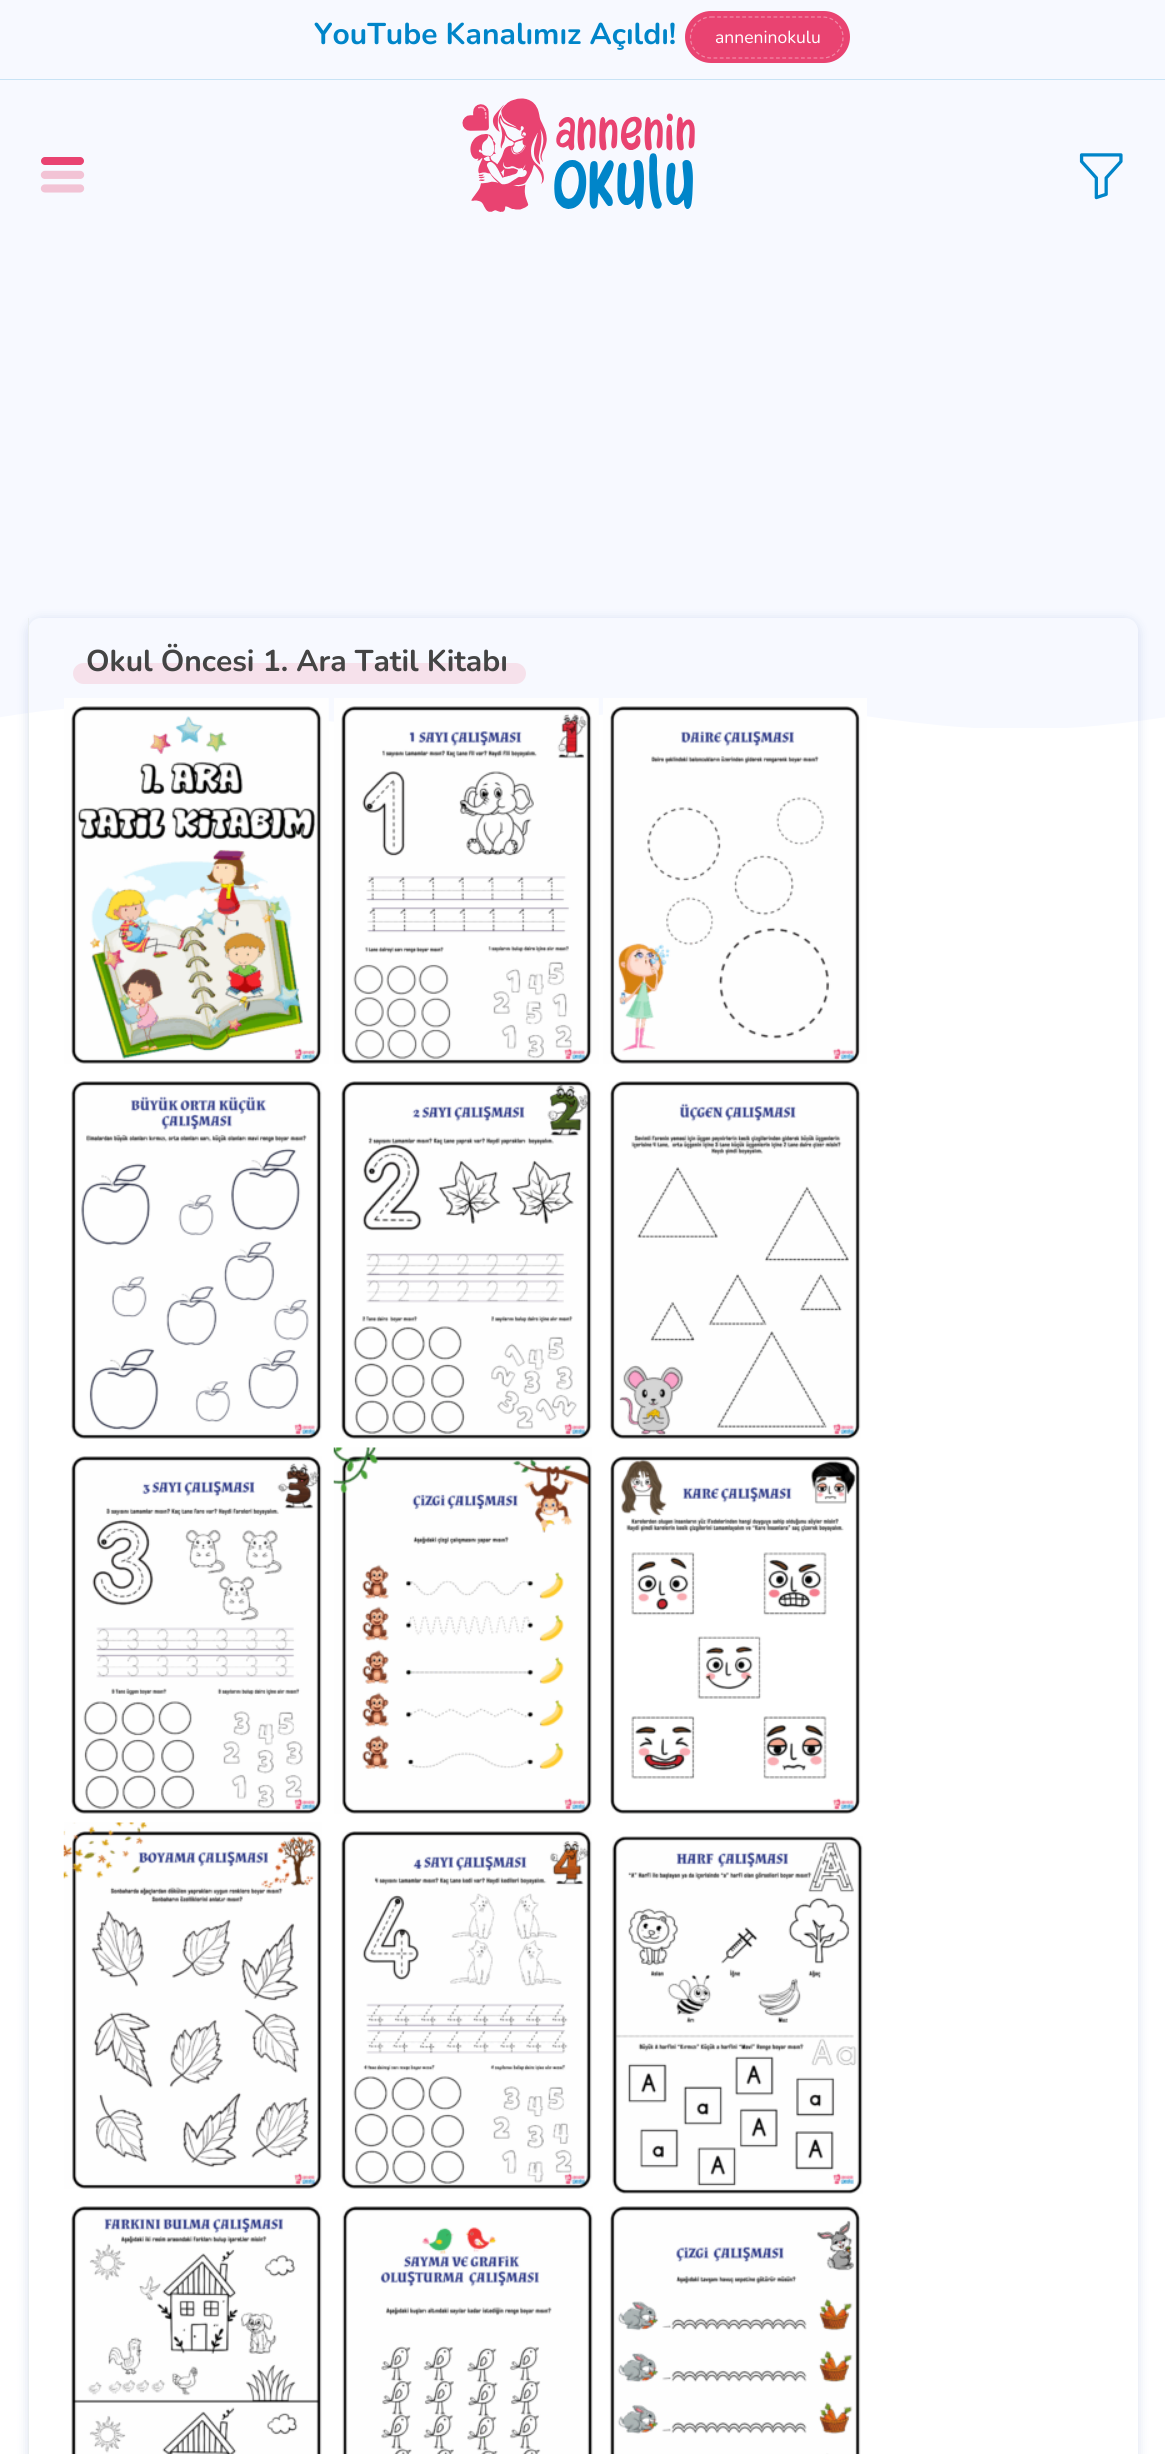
#include <cairo/cairo.h>
#include <math.h>
#include <stddef.h>

static cairo_t *cr;

static void rgb(unsigned color)
{
	cairo_set_source_rgb(cr, (color >> 16) / 255.0, (color >> 8 & 255) / 255.0, (color & 255) / 255.0);
}

static void rrect(double x, double y, double w, double h, double r)
{
	cairo_new_sub_path(cr);
	cairo_arc(cr, x + w - r, y + h - r, r, 0, M_PI / 2);
	cairo_arc(cr, x + r, y + h - r, r, M_PI / 2, M_PI);
	cairo_arc(cr, x + r, y + r, r, M_PI, 1.5 * M_PI);
	cairo_arc(cr, x + w - r, y + r, r, 1.5 * M_PI, 2 * M_PI);
	cairo_close_path(cr);
}

static void soft_shadow(double x, double y, double w, double h, double r, double blur, double alpha)
{
	cairo_push_group_with_content(cr, CAIRO_CONTENT_ALPHA);
	cairo_set_operator(cr, CAIRO_OPERATOR_SOURCE);
	for (int i = 15; i >= -15 && fmin(w, h) + blur * i / 3 > 0; i -= 2) {
		double e = blur * i / 6;
		cairo_set_source_rgba(cr, 0, 0, 0, alpha * erfc((i - 1) / 8.5) / 2);
		rrect(x - e, y - e, w + 2 * e, h + 2 * e, fmax(0, fmin(r + e + blur * .6, fmin(w, h) / 2 + e)));
		cairo_fill(cr);
	}
	cairo_pattern_t *soft = cairo_pop_group(cr);
	cairo_mask(cr, soft);
	cairo_pattern_destroy(soft);
}

static void image(const char *path, double x, double y, double w, double h)
{
	cairo_surface_t *image = cairo_image_surface_create_from_png(path);
	cairo_save(cr);
	cairo_set_source_surface(cr, image, x, y);
	cairo_rectangle(cr, x, y, w, h);
	cairo_fill(cr);
	cairo_restore(cr);
	cairo_surface_destroy(image);
}

int main(void) {
	cairo_surface_t *surface = cairo_image_surface_create(CAIRO_FORMAT_RGB24, 1165, 2454);
	cr = cairo_create(surface);
	cairo_font_options_t *options = cairo_font_options_create();
	cairo_font_options_set_hint_metrics(options, CAIRO_HINT_METRICS_OFF);
	cairo_font_options_set_hint_style(options, CAIRO_HINT_STYLE_NONE);
	cairo_set_font_options(cr, options);
	cairo_set_miter_limit(cr, 4);
	rgb(0xffffff);
	cairo_paint(cr);
	rgb(0xf7f9ff);
	cairo_rectangle(cr, 0, 0, 1165, 728);
	cairo_fill(cr);
	rgb(0xc8e3f5);
	cairo_rectangle(cr, 0, 79, 1165, 1);
	cairo_fill(cr);
	rgb(0xe94371);
	rrect(685, 11, 165, 52, 26);
	cairo_fill(cr);
	cairo_new_path(cr);
	cairo_move_to(cr, 711, 17);
	cairo_line_to(cr, 822.5, 17);
	cairo_curve_to(cr, 834, 17, 843, 26, 843, 37.5);
	cairo_curve_to(cr, 843, 49, 834, 58, 822.5, 58);
	cairo_line_to(cr, 711, 58);
	cairo_curve_to(cr, 700, 58, 690.5, 49, 690.5, 37.5);
	cairo_curve_to(cr, 690.5, 26, 700, 17, 711, 17);
	cairo_close_path(cr);
	rgb(0xf189a6);
	cairo_set_line_width(cr, 1.2);
	cairo_set_dash(cr, (double[]){3.75, 2.5}, 2, 0);
	cairo_stroke(cr);
	image("img/1.png", 40, 157, 45, 36);
	image("img/2.png", 462, 98, 233, 114);
	image("img/3.png", 1079, 153, 44, 47);
	image("img/4.png", 0, 708, 1165, 20);
	cairo_save(cr);
	cairo_set_fill_rule(cr, CAIRO_FILL_RULE_EVEN_ODD);
	cairo_new_path(cr);
	cairo_move_to(cr, 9, 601);
	cairo_line_to(cr, 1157, 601);
	cairo_line_to(cr, 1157, 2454);
	cairo_line_to(cr, 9, 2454);
	cairo_close_path(cr);
	cairo_move_to(cr, 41, 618);
	cairo_line_to(cr, 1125, 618);
	cairo_curve_to(cr, 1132, 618, 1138, 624, 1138, 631);
	cairo_line_to(cr, 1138, 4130);
	cairo_curve_to(cr, 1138, 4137, 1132, 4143, 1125, 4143);
	cairo_line_to(cr, 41, 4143);
	cairo_curve_to(cr, 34, 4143, 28, 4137, 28, 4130);
	cairo_line_to(cr, 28, 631);
	cairo_curve_to(cr, 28, 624, 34, 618, 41, 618);
	cairo_close_path(cr);
	cairo_clip(cr);
	rgb(0x00319b);
	soft_shadow(28, 620, 1110, 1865, 13, 6, 0.14);
	cairo_restore(cr);
	rgb(0xeaeef0);
	cairo_rectangle(cr, 28, 618, 1, 1836);
	cairo_fill(cr);
	rgb(0xf6e1eb);
	rrect(73, 663, 453, 21, 10.5);
	cairo_fill(cr);
	image("img/5.png", 64, 698, 265, 366);
	image("img/6.png", 334, 698, 265, 366);
	image("img/7.png", 603, 698, 264, 366);
	image("img/8.png", 71, 1081, 251, 358);
	image("img/9.png", 341, 1081, 251, 358);
	image("img/10.png", 609, 1081, 252, 358);
	image("img/11.png", 71, 1456, 251, 358);
	image("img/12.png", 333, 1447, 259, 367);
	image("img/13.png", 610, 1456, 251, 358);
	image("img/14.png", 63, 1822, 259, 367);
	image("img/15.png", 341, 1831, 251, 358);
	image("img/16.png", 612, 1836, 251, 358);
	image("img/17.png", 71, 2206, 251, 248);
	image("img/18.png", 342, 2206, 251, 248);
	image("img/19.png", 609, 2206, 252, 248);
	cairo_select_font_face(cr, "Nunito", CAIRO_FONT_SLANT_NORMAL, CAIRO_FONT_WEIGHT_BOLD);
	cairo_set_font_size(cr, 30);
	rgb(0x0085c9);
	cairo_move_to(cr, 314, 44);
	cairo_show_text(cr, "YouTube Kanalımız Açıldı!");
	cairo_select_font_face(cr, "Nunito", CAIRO_FONT_SLANT_NORMAL, CAIRO_FONT_WEIGHT_NORMAL);
	cairo_set_font_size(cr, 17.5);
	rgb(0xffffff);
	cairo_move_to(cr, 715, 43);
	cairo_show_text(cr, "anneninokulu");
	cairo_select_font_face(cr, "Nunito", CAIRO_FONT_SLANT_NORMAL, CAIRO_FONT_WEIGHT_BOLD);
	cairo_set_font_size(cr, 30);
	rgb(0x444444);
	cairo_move_to(cr, 86, 671);
	cairo_show_text(cr, "Okul Öncesi 1. Ara Tatil Kitabı");
	cairo_surface_write_to_png(surface, "page.png");
	cairo_font_options_destroy(options);
	cairo_destroy(cr);
	cairo_surface_destroy(surface);
	return 0;
}
